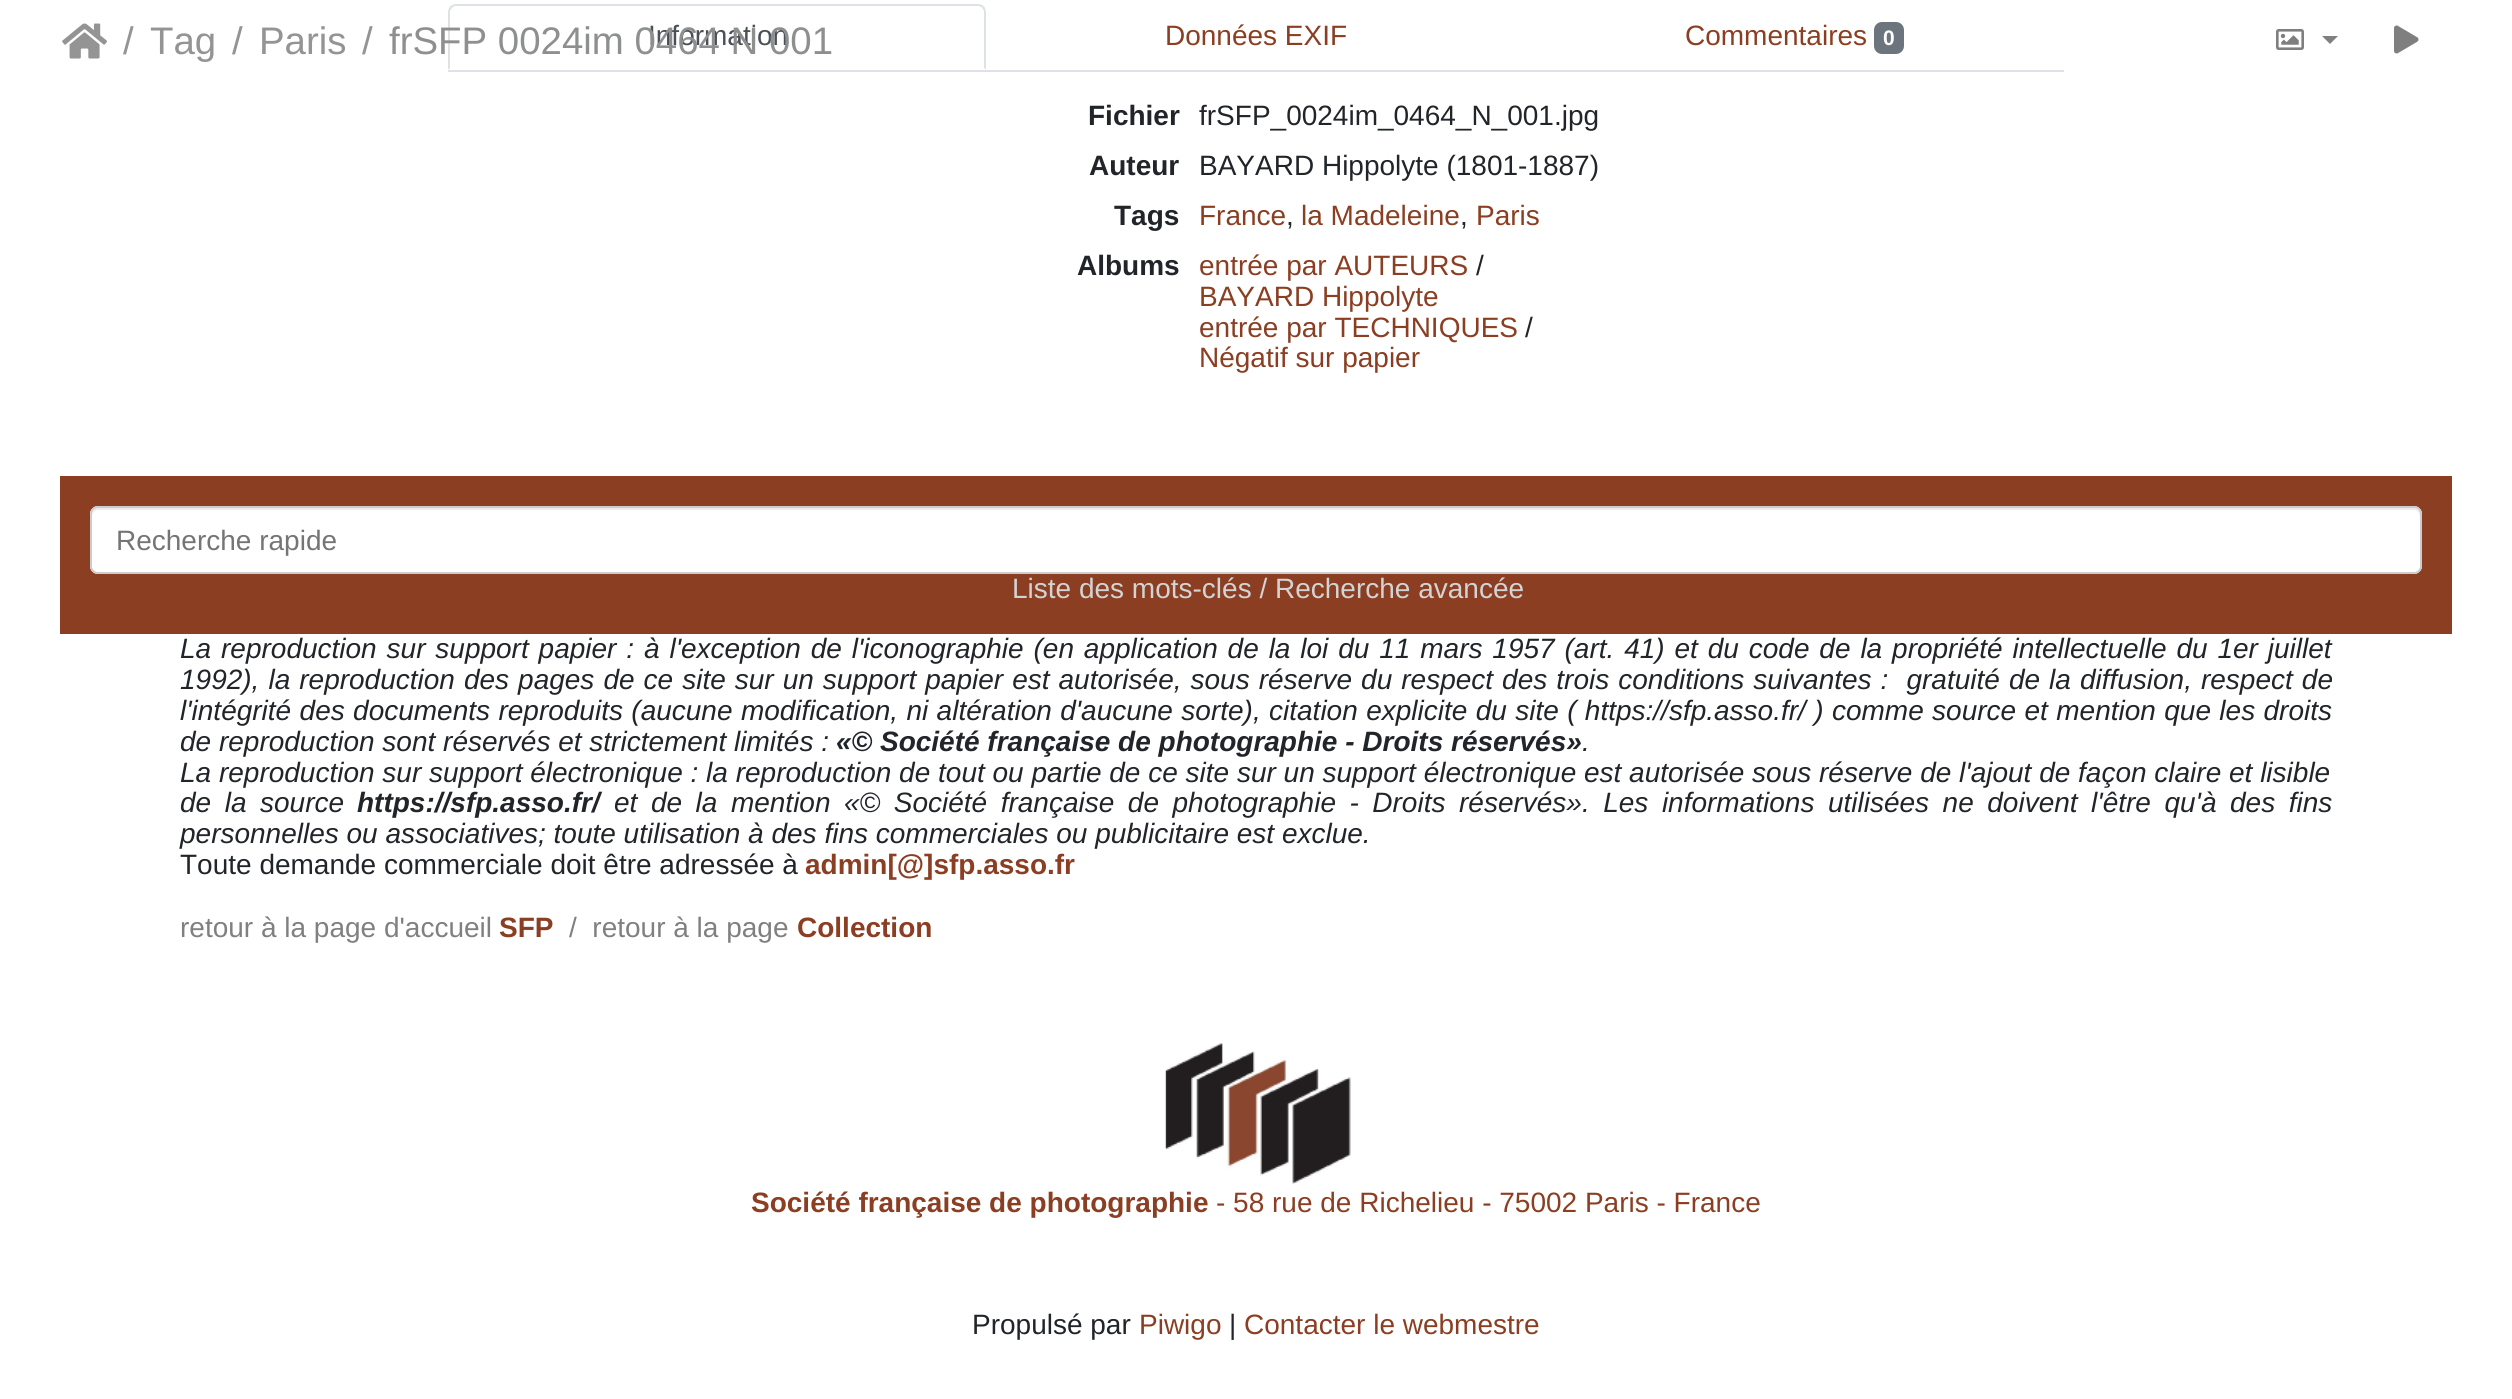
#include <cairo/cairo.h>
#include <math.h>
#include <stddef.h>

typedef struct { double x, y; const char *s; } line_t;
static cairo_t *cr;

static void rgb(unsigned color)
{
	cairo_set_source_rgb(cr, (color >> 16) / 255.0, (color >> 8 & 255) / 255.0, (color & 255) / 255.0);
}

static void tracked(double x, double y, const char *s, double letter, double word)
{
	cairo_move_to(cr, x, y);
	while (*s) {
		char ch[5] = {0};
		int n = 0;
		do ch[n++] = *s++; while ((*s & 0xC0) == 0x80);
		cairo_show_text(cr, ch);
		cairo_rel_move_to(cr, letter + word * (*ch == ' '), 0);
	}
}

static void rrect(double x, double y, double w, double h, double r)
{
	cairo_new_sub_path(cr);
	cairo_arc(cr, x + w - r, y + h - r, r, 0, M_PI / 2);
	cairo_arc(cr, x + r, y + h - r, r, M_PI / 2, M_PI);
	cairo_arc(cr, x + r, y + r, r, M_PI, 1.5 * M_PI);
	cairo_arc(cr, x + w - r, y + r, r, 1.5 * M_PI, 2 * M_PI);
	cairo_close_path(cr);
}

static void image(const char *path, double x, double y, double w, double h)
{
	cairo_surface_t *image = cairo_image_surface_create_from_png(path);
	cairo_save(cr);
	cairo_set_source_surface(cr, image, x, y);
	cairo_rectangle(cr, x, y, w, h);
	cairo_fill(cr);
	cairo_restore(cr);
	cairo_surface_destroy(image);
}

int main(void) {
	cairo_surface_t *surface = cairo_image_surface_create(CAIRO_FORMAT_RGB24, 2512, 1399);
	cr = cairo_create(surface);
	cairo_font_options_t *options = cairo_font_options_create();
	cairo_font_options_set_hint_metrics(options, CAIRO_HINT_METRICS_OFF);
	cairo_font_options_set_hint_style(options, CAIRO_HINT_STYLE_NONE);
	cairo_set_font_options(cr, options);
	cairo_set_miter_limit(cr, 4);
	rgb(0xffffff);
	cairo_paint(cr);
	rgb(0xdee2e6);
	cairo_rectangle(cr, 448, 70, 1616, 2);
	cairo_fill(cr);
	cairo_new_path(cr);
	cairo_move_to(cr, 456, 4);
	cairo_curve_to(cr, 454, 4, 452, 5, 450, 6);
	cairo_line_to(cr, 452, 8);
	cairo_curve_to(cr, 453, 7, 454, 6, 456, 6);
	cairo_line_to(cr, 978, 6);
	cairo_curve_to(cr, 980, 6, 981, 7, 982, 8);
	cairo_line_to(cr, 984, 6);
	cairo_curve_to(cr, 982, 5, 980, 4, 978, 4);
	cairo_close_path(cr);
	cairo_fill(cr);
	cairo_new_path(cr);
	cairo_move_to(cr, 986, 70);
	cairo_line_to(cr, 986, 12);
	cairo_curve_to(cr, 986, 10, 985, 8, 984, 6);
	cairo_line_to(cr, 982, 8);
	cairo_curve_to(cr, 983, 9, 984, 10, 984, 12);
	cairo_line_to(cr, 984, 68);
	cairo_close_path(cr);
	cairo_fill(cr);
	rgb(0xffffff);
	cairo_new_path(cr);
	cairo_move_to(cr, 986, 70);
	cairo_line_to(cr, 984, 68);
	cairo_line_to(cr, 450, 68);
	cairo_line_to(cr, 448, 70);
	cairo_close_path(cr);
	cairo_fill(cr);
	rgb(0xdee2e6);
	cairo_new_path(cr);
	cairo_move_to(cr, 448, 70);
	cairo_line_to(cr, 450, 68);
	cairo_line_to(cr, 450, 12);
	cairo_curve_to(cr, 450, 10, 451, 9, 452, 8);
	cairo_line_to(cr, 450, 6);
	cairo_curve_to(cr, 449, 8, 448, 10, 448, 12);
	cairo_close_path(cr);
	cairo_fill(cr);
	rgb(0x6c757d);
	rrect(1874, 22, 30, 32, 8);
	cairo_fill(cr);
	rgb(0x8b3e22);
	cairo_rectangle(cr, 60, 476, 2392, 158);
	cairo_fill(cr);
	rgb(0xffffff);
	rrect(90, 506, 2332, 68, 8);
	cairo_fill(cr);
	rgb(0xececec);
	cairo_new_path(cr);
	cairo_move_to(cr, 98, 510);
	cairo_line_to(cr, 2414, 510);
	cairo_curve_to(cr, 2417, 510, 2420, 513, 2420, 516);
	cairo_line_to(cr, 2420, 514);
	cairo_curve_to(cr, 2420, 511, 2417, 508, 2414, 508);
	cairo_line_to(cr, 98, 508);
	cairo_curve_to(cr, 95, 508, 92, 511, 92, 514);
	cairo_line_to(cr, 92, 516);
	cairo_curve_to(cr, 92, 513, 95, 510, 98, 510);
	cairo_close_path(cr);
	cairo_fill(cr);
	rrect(91, 507, 2330, 66, 7);
	rgb(0xcccccc);
	cairo_stroke(cr);
	image("img/1.png", 1165, 1043, 186, 141);
	image("img/2.png", 62, 23, 45, 36);
	image("img/3.png", 2276, 29, 28, 21);
	rgb(0x808080);
	cairo_new_path(cr);
	cairo_move_to(cr, 2322, 36);
	cairo_line_to(cr, 2338, 36);
	cairo_line_to(cr, 2330, 44);
	cairo_close_path(cr);
	cairo_fill(cr);
	image("img/4.png", 2394, 25, 25, 29);
	cairo_select_font_face(cr, "Liberation Sans", CAIRO_FONT_SLANT_NORMAL, CAIRO_FONT_WEIGHT_NORMAL);
	cairo_set_font_size(cr, 28);
	rgb(0x495057);
	cairo_move_to(cr, 648, 45);
	cairo_show_text(cr, "Information");
	rgb(0x8b3e22);
	cairo_move_to(cr, 1165, 45);
	cairo_show_text(cr, "Données EXIF");
	cairo_move_to(cr, 1685, 45);
	cairo_show_text(cr, "Commentaires");
	cairo_select_font_face(cr, "Liberation Sans", CAIRO_FONT_SLANT_NORMAL, CAIRO_FONT_WEIGHT_BOLD);
	cairo_set_font_size(cr, 21);
	rgb(0xffffff);
	cairo_move_to(cr, 1883, 45);
	cairo_show_text(cr, "0");
	cairo_set_font_size(cr, 28);
	rgb(0x212529);
	cairo_move_to(cr, 1088, 125);
	cairo_show_text(cr, "Fichier");
	cairo_select_font_face(cr, "Liberation Sans", CAIRO_FONT_SLANT_NORMAL, CAIRO_FONT_WEIGHT_NORMAL);
	cairo_move_to(cr, 1199, 125);
	cairo_show_text(cr, "frSFP_0024im_0464_N_001.jpg");
	cairo_select_font_face(cr, "Liberation Sans", CAIRO_FONT_SLANT_NORMAL, CAIRO_FONT_WEIGHT_BOLD);
	cairo_move_to(cr, 1089, 175);
	cairo_show_text(cr, "Auteur");
	cairo_select_font_face(cr, "Liberation Sans", CAIRO_FONT_SLANT_NORMAL, CAIRO_FONT_WEIGHT_NORMAL);
	cairo_move_to(cr, 1199, 175);
	cairo_show_text(cr, "BAYARD Hippolyte (1801-1887)");
	cairo_select_font_face(cr, "Liberation Sans", CAIRO_FONT_SLANT_NORMAL, CAIRO_FONT_WEIGHT_BOLD);
	cairo_move_to(cr, 1114, 225);
	cairo_show_text(cr, "Tags");
	cairo_select_font_face(cr, "Liberation Sans", CAIRO_FONT_SLANT_NORMAL, CAIRO_FONT_WEIGHT_NORMAL);
	rgb(0x8b3e22);
	cairo_move_to(cr, 1199, 225);
	cairo_show_text(cr, "France");
	rgb(0x212529);
	cairo_move_to(cr, 1286, 225);
	cairo_show_text(cr, ",");
	rgb(0x8b3e22);
	cairo_move_to(cr, 1301, 225);
	cairo_show_text(cr, "la Madeleine");
	rgb(0x212529);
	cairo_move_to(cr, 1460, 225);
	cairo_show_text(cr, ",");
	rgb(0x8b3e22);
	cairo_move_to(cr, 1476, 225);
	cairo_show_text(cr, "Paris");
	cairo_select_font_face(cr, "Liberation Sans", CAIRO_FONT_SLANT_NORMAL, CAIRO_FONT_WEIGHT_BOLD);
	rgb(0x212529);
	cairo_move_to(cr, 1077, 275);
	cairo_show_text(cr, "Albums");
	cairo_select_font_face(cr, "Liberation Sans", CAIRO_FONT_SLANT_NORMAL, CAIRO_FONT_WEIGHT_NORMAL);
	rgb(0x8b3e22);
	cairo_move_to(cr, 1199, 275);
	cairo_show_text(cr, "entrée par AUTEURS");
	rgb(0x212529);
	cairo_move_to(cr, 1476, 275);
	cairo_show_text(cr, "/");
	rgb(0x8b3e22);
	cairo_move_to(cr, 1199, 306);
	cairo_show_text(cr, "BAYARD Hippolyte");
	cairo_move_to(cr, 1199, 337);
	cairo_show_text(cr, "entrée par TECHNIQUES");
	rgb(0x212529);
	cairo_move_to(cr, 1525, 337);
	cairo_show_text(cr, "/");
	rgb(0x8b3e22);
	cairo_move_to(cr, 1199, 367);
	cairo_show_text(cr, "Négatif sur papier");
	rgb(0x757575);
	cairo_move_to(cr, 116, 550);
	cairo_show_text(cr, "Recherche rapide");
	rgb(0xd3d3d3);
	cairo_move_to(cr, 1012, 598);
	cairo_show_text(cr, "Liste des mots-clés / Recherche avancée");
	cairo_select_font_face(cr, "Liberation Sans", CAIRO_FONT_SLANT_ITALIC, CAIRO_FONT_WEIGHT_NORMAL);
	rgb(0x212529);
	tracked(180, 658, "La reproduction sur support papier : à l'exception de l'iconographie (en application de la loi du 11 mars 1957 (art. 41) et du code de la propriété intellectuelle du 1er juillet", 0, 2.1);
	tracked(180, 689, "1992), la reproduction des pages de ce site sur un support papier est autorisée, sous réserve du respect des trois conditions suivantes :  gratuité de la diffusion, respect de", 0, 1.25);
	tracked(180, 720, "l'intégrité des documents reproduits (aucune modification, ni altération d'aucune sorte), citation explicite du site ( https://sfp.asso.fr/ ) comme source et mention que les droits", 0, 0.6);
	cairo_move_to(cr, 180, 751);
	cairo_show_text(cr, "de reproduction sont réservés et strictement limités :");
	cairo_select_font_face(cr, "Liberation Sans", CAIRO_FONT_SLANT_ITALIC, CAIRO_FONT_WEIGHT_BOLD);
	cairo_move_to(cr, 836, 751);
	cairo_show_text(cr, "«© Société française de photographie - Droits réservés»");
	cairo_select_font_face(cr, "Liberation Sans", CAIRO_FONT_SLANT_ITALIC, CAIRO_FONT_WEIGHT_NORMAL);
	cairo_move_to(cr, 1582, 751);
	cairo_show_text(cr, ".");
	cairo_move_to(cr, 180, 782);
	cairo_show_text(cr, "La reproduction sur support électronique : la reproduction de tout ou partie de ce site sur un support électronique est autorisée sous réserve de l'ajout de façon claire et lisible");
	tracked(180, 812, "de la source", 0, 5.75);
	cairo_select_font_face(cr, "Liberation Sans", CAIRO_FONT_SLANT_ITALIC, CAIRO_FONT_WEIGHT_BOLD);
	cairo_move_to(cr, 357, 812);
	cairo_show_text(cr, "https://sfp.asso.fr/");
	cairo_select_font_face(cr, "Liberation Sans", CAIRO_FONT_SLANT_ITALIC, CAIRO_FONT_WEIGHT_NORMAL);
	tracked(614, 812, "et de la mention «© Société française de photographie - Droits réservés». Les informations utilisées ne doivent l'être qu'à des fins", 0, 5.75);
	cairo_move_to(cr, 180, 843);
	cairo_show_text(cr, "personnelles ou associatives; toute utilisation à des fins commerciales ou publicitaire est exclue.");
	cairo_select_font_face(cr, "Liberation Sans", CAIRO_FONT_SLANT_NORMAL, CAIRO_FONT_WEIGHT_NORMAL);
	cairo_move_to(cr, 180, 874);
	cairo_show_text(cr, "Toute demande commerciale doit être adressée à");
	cairo_select_font_face(cr, "Liberation Sans", CAIRO_FONT_SLANT_NORMAL, CAIRO_FONT_WEIGHT_BOLD);
	rgb(0x8b3e22);
	cairo_move_to(cr, 805, 874);
	cairo_show_text(cr, "admin[@]sfp.asso.fr");
	cairo_select_font_face(cr, "Liberation Sans", CAIRO_FONT_SLANT_NORMAL, CAIRO_FONT_WEIGHT_NORMAL);
	rgb(0x808080);
	cairo_move_to(cr, 180, 937);
	cairo_show_text(cr, "retour à la page d'accueil");
	cairo_select_font_face(cr, "Liberation Sans", CAIRO_FONT_SLANT_NORMAL, CAIRO_FONT_WEIGHT_BOLD);
	rgb(0x8b3e22);
	cairo_move_to(cr, 499, 937);
	cairo_show_text(cr, "SFP");
	cairo_select_font_face(cr, "Liberation Sans", CAIRO_FONT_SLANT_NORMAL, CAIRO_FONT_WEIGHT_NORMAL);
	rgb(0x808080);
	cairo_move_to(cr, 569, 937);
	cairo_show_text(cr, "/  retour à la page");
	cairo_select_font_face(cr, "Liberation Sans", CAIRO_FONT_SLANT_NORMAL, CAIRO_FONT_WEIGHT_BOLD);
	rgb(0x8b3e22);
	cairo_move_to(cr, 797, 937);
	cairo_show_text(cr, "Collection");
	cairo_move_to(cr, 751, 1212);
	cairo_show_text(cr, "Société française de photographie");
	cairo_select_font_face(cr, "Liberation Sans", CAIRO_FONT_SLANT_NORMAL, CAIRO_FONT_WEIGHT_NORMAL);
	cairo_move_to(cr, 1216, 1212);
	cairo_show_text(cr, "- 58 rue de Richelieu - 75002 Paris - France");
	cairo_set_font_size(cr, 38.4);
	rgb(0x949494);
	{
		static const line_t items[] = {
			{123, 54, "/"},
			{150, 54, "Tag"},
			{232, 54, "/"},
			{259, 54, "Paris"},
			{362, 54, "/"},
		};
		for (size_t i = 0; i < sizeof items / sizeof *items; i++) {
			cairo_move_to(cr, items[i].x, items[i].y);
			cairo_show_text(cr, items[i].s);
		}
	}
	rgb(0x8e8f8f);
	cairo_move_to(cr, 389, 54);
	cairo_show_text(cr, "frSFP 0024im 0464 N 001");
	cairo_set_font_size(cr, 28);
	rgb(0x212529);
	cairo_move_to(cr, 972, 1334);
	cairo_show_text(cr, "Propulsé par");
	rgb(0x8b3e22);
	cairo_move_to(cr, 1139, 1334);
	cairo_show_text(cr, "Piwigo");
	rgb(0x212529);
	cairo_move_to(cr, 1229, 1334);
	cairo_show_text(cr, "|");
	rgb(0x8b3e22);
	cairo_move_to(cr, 1244, 1334);
	cairo_show_text(cr, "Contacter le webmestre");
	cairo_surface_write_to_png(surface, "page.png");
	cairo_font_options_destroy(options);
	cairo_destroy(cr);
	cairo_surface_destroy(surface);
	return 0;
}
